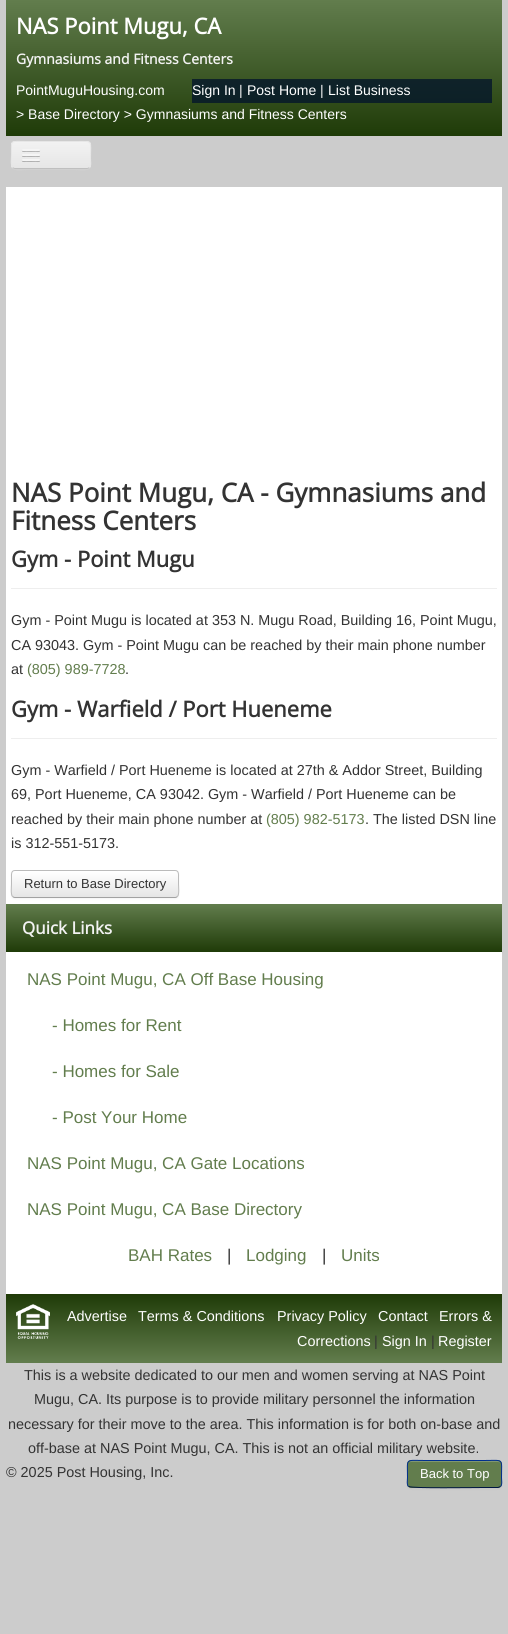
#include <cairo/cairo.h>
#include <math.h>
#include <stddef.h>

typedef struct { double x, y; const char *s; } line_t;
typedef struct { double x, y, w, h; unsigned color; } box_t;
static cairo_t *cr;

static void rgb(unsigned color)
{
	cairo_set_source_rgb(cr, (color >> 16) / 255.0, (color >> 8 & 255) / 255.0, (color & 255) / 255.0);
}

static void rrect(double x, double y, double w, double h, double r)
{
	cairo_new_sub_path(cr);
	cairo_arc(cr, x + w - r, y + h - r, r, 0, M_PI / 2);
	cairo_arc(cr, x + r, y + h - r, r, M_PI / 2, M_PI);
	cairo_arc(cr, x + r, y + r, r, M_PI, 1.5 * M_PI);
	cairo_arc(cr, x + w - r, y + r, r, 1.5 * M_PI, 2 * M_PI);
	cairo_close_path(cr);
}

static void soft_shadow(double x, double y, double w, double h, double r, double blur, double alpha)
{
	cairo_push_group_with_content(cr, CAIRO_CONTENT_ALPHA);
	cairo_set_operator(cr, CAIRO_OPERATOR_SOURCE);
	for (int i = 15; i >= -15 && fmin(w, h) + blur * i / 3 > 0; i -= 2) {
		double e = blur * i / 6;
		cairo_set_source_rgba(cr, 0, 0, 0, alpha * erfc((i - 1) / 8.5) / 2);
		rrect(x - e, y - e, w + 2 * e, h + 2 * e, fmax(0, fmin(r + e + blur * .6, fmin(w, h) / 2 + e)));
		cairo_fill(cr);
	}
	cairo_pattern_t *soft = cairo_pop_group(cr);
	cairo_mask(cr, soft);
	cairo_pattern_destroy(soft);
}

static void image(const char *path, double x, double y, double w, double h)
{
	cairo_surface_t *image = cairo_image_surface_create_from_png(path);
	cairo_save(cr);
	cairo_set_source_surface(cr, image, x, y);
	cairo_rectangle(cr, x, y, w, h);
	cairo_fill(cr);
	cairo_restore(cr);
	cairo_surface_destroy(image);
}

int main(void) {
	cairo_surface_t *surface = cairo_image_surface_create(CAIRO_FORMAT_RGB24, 508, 1634);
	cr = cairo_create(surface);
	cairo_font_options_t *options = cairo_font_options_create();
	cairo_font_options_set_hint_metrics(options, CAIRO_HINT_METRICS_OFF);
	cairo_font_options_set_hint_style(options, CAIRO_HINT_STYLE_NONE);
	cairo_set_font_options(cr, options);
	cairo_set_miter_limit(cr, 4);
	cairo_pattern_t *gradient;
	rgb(0xcccccc);
	cairo_paint(cr);
	gradient = cairo_pattern_create_linear(254, 0, 254, 136);
	cairo_pattern_add_color_stop_rgba(gradient, 0, 0.384, 0.49, 0.302, 1);
	cairo_pattern_add_color_stop_rgba(gradient, 1, 0.122, 0.231, 0.031, 1);
	cairo_set_source(cr, gradient);
	cairo_pattern_destroy(gradient);
	cairo_rectangle(cr, 6, 0, 496, 136);
	cairo_fill(cr);
	gradient = cairo_pattern_create_linear(254, 0, 254, 136);
	cairo_pattern_add_color_stop_rgba(gradient, 0, 0.098, 0.173, 0.204, 1);
	cairo_pattern_add_color_stop_rgba(gradient, 1, 0.031, 0.11, 0.133, 1);
	cairo_set_source(cr, gradient);
	cairo_pattern_destroy(gradient);
	cairo_rectangle(cr, 192, 79, 300, 24);
	cairo_fill(cr);
	rgb(0xd0d0d0);
	cairo_new_path(cr);
	cairo_move_to(cr, 11, 165);
	cairo_curve_to(cr, 11, 173, 22, 170, 27, 170);
	cairo_line_to(cr, 75, 170);
	cairo_curve_to(cr, 80, 170, 91, 173, 91, 165);
	cairo_curve_to(cr, 91, 167, 89, 169, 87, 169);
	cairo_line_to(cr, 15, 169);
	cairo_curve_to(cr, 13, 169, 11, 167, 11, 165);
	cairo_close_path(cr);
	cairo_fill(cr);
	rgb(0xededed);
	rrect(11, 141, 80, 28, 4);
	cairo_fill(cr);
	cairo_save(cr);
	rrect(11, 141, 80, 28, 4);
	cairo_clip(cr);
	gradient = cairo_pattern_create_linear(51, 142, 51, 168);
	cairo_pattern_add_color_stop_rgba(gradient, 0, 0.949, 0.949, 0.949, 1);
	cairo_pattern_add_color_stop_rgba(gradient, 1, 0.902, 0.902, 0.902, 1);
	cairo_set_source(cr, gradient);
	cairo_pattern_destroy(gradient);
	cairo_rectangle(cr, 11, 142, 80, 26);
	cairo_fill(cr);
	cairo_restore(cr);
	cairo_new_path(cr);
	cairo_move_to(cr, 89.5, 167.5);
	cairo_curve_to(cr, 89, 168, 88, 168.5, 87, 168.5);
	cairo_line_to(cr, 15, 168.5);
	cairo_curve_to(cr, 14, 168.5, 13, 168, 12.5, 167.5);
	rgb(0xbfbfbf);
	cairo_set_line_width(cr, 1);
	cairo_stroke(cr);
	cairo_new_path(cr);
	cairo_move_to(cr, 12.5, 167.5);
	cairo_curve_to(cr, 10.5, 165, 11.5, 157.5, 11.5, 155);
	cairo_curve_to(cr, 11.5, 139, 9.5, 141.5, 27, 141.5);
	cairo_line_to(cr, 75, 141.5);
	cairo_curve_to(cr, 94, 141.5, 90.5, 139.5, 90.5, 158.5);
	cairo_curve_to(cr, 90.5, 161, 91.5, 165.5, 89.5, 167.5);
	rgb(0xe6e6e6);
	cairo_stroke(cr);
	rgb(0xb3b3b3);
	cairo_new_path(cr);
	cairo_move_to(cr, 22, 150.5);
	cairo_curve_to(cr, 21, 152.5, 25.5, 152, 25.5, 152);
	cairo_line_to(cr, 36.5, 152);
	cairo_curve_to(cr, 36.5, 152, 41, 152.5, 40, 150.5);
	cairo_curve_to(cr, 39, 151.5, 32.5, 151, 31, 151);
	cairo_curve_to(cr, 29.5, 151, 23, 151.5, 22, 150.5);
	cairo_close_path(cr);
	cairo_fill(cr);
	rgb(0xf5f5f5);
	rrect(22, 149, 18, 2, 1);
	cairo_fill(cr);
	rgb(0xb0b0b0);
	cairo_new_path(cr);
	cairo_move_to(cr, 22, 155.5);
	cairo_curve_to(cr, 21, 157.5, 25.5, 157, 25.5, 157);
	cairo_line_to(cr, 36.5, 157);
	cairo_curve_to(cr, 36.5, 157, 41, 157.5, 40, 155.5);
	cairo_curve_to(cr, 39, 156.5, 32.5, 156, 31, 156);
	cairo_curve_to(cr, 29.5, 156, 23, 156.5, 22, 155.5);
	cairo_close_path(cr);
	cairo_fill(cr);
	rgb(0xf5f5f5);
	rrect(22, 154, 18, 2, 1);
	cairo_fill(cr);
	rgb(0xafafaf);
	cairo_new_path(cr);
	cairo_move_to(cr, 22, 160.5);
	cairo_curve_to(cr, 21, 162.5, 25.5, 162, 25.5, 162);
	cairo_line_to(cr, 36.5, 162);
	cairo_curve_to(cr, 36.5, 162, 41, 162.5, 40, 160.5);
	cairo_curve_to(cr, 39, 161.5, 32.5, 161, 31, 161);
	cairo_curve_to(cr, 29.5, 161, 23, 161.5, 22, 160.5);
	cairo_close_path(cr);
	cairo_fill(cr);
	rgb(0xf5f5f5);
	rrect(22, 159, 18, 2, 1);
	cairo_fill(cr);
	{
		static const box_t items[] = {
			{6, 187, 496, 1107, 0xffffff},
			{11, 588, 486, 1, 0xeeeeee},
			{11, 738, 486, 1, 0xeeeeee},
		};
		for (size_t i = 0; i < sizeof items / sizeof *items; i++) {
			rgb(items[i].color);
			cairo_rectangle(cr, items[i].x, items[i].y, items[i].w, items[i].h);
			cairo_fill(cr);
		}
	}
	rgb(0x000000);
	soft_shadow(11, 871, 168, 28, 4, 1, 0.05);
	cairo_save(cr);
	rrect(11, 870, 168, 28, 4);
	cairo_clip(cr);
	gradient = cairo_pattern_create_linear(95, 871, 95, 897);
	cairo_pattern_add_color_stop_rgba(gradient, 0, 1, 1, 1, 1);
	cairo_pattern_add_color_stop_rgba(gradient, 1, 0.902, 0.902, 0.902, 1);
	cairo_set_source(cr, gradient);
	cairo_pattern_destroy(gradient);
	cairo_rectangle(cr, 11, 871, 168, 26);
	cairo_fill(cr);
	cairo_restore(cr);
	cairo_new_path(cr);
	cairo_move_to(cr, 177.5, 896.5);
	cairo_curve_to(cr, 177, 897, 176, 897.5, 175, 897.5);
	cairo_line_to(cr, 15, 897.5);
	cairo_curve_to(cr, 14, 897.5, 13, 897, 12.5, 896.5);
	rgb(0xa2a2a2);
	cairo_stroke(cr);
	cairo_new_path(cr);
	cairo_move_to(cr, 12.5, 896.5);
	cairo_curve_to(cr, 10.5, 894, 11.5, 886.5, 11.5, 884);
	cairo_line_to(cr, 11.5, 877.5);
	cairo_curve_to(cr, 11.5, 874.5, 11, 870.5, 15, 870.5);
	cairo_line_to(cr, 175, 870.5);
	cairo_curve_to(cr, 179, 870.5, 178.5, 874.5, 178.5, 877.5);
	cairo_line_to(cr, 178.5, 884);
	cairo_curve_to(cr, 178.5, 886.5, 179.5, 894, 177.5, 896.5);
	rgb(0xbbbbbb);
	cairo_stroke(cr);
	gradient = cairo_pattern_create_linear(254, 904, 254, 952);
	cairo_pattern_add_color_stop_rgba(gradient, 0, 0.384, 0.49, 0.302, 1);
	cairo_pattern_add_color_stop_rgba(gradient, 1, 0.122, 0.231, 0.031, 1);
	cairo_set_source(cr, gradient);
	cairo_pattern_destroy(gradient);
	cairo_rectangle(cr, 6, 904, 496, 48);
	cairo_fill(cr);
	gradient = cairo_pattern_create_linear(254, 1294, 254, 1363);
	cairo_pattern_add_color_stop_rgba(gradient, 0, 0.122, 0.231, 0.031, 1);
	cairo_pattern_add_color_stop_rgba(gradient, 1, 0.384, 0.49, 0.302, 1);
	cairo_set_source(cr, gradient);
	cairo_pattern_destroy(gradient);
	cairo_rectangle(cr, 6, 1294, 496, 69);
	cairo_fill(cr);
	image("img/1.png", 16, 1304, 34, 35);
	rgb(0x000000);
	soft_shadow(407, 1461, 95, 28, 4, 1, 0.05);
	rgb(0x627d4d);
	rrect(407, 1460, 95, 28, 4);
	cairo_fill(cr);
	rgb(0x819771);
	cairo_new_path(cr);
	cairo_move_to(cr, 411, 1462);
	cairo_line_to(cr, 498, 1462);
	cairo_curve_to(cr, 500, 1462, 501, 1463, 501, 1465);
	cairo_curve_to(cr, 501, 1457, 487, 1461, 484, 1461);
	cairo_line_to(cr, 426, 1461);
	cairo_curve_to(cr, 422, 1461, 408, 1457, 408, 1465);
	cairo_curve_to(cr, 408, 1463, 409, 1462, 411, 1462);
	cairo_close_path(cr);
	cairo_fill(cr);
	cairo_new_path(cr);
	cairo_move_to(cr, 500.5, 1486.5);
	cairo_line_to(cr, 498, 1487.5);
	cairo_line_to(cr, 483.5, 1487.5);
	cairo_curve_to(cr, 475, 1487.5, 411, 1488.5, 409, 1486.5);
	cairo_line_to(cr, 408.5, 1486.5);
	rgb(0x001641);
	cairo_stroke(cr);
	cairo_new_path(cr);
	cairo_move_to(cr, 408.5, 1486.5);
	cairo_curve_to(cr, 406.5, 1484.5, 407.5, 1480, 407.5, 1477.5);
	cairo_curve_to(cr, 407.5, 1457.5, 404.5, 1460.5, 425.5, 1460.5);
	cairo_line_to(cr, 483.5, 1460.5);
	cairo_curve_to(cr, 504.5, 1460.5, 501.5, 1457.5, 501.5, 1477.5);
	cairo_curve_to(cr, 501.5, 1480, 502.5, 1484.5, 500.5, 1486.5);
	rgb(0x002f8d);
	cairo_stroke(cr);
	cairo_select_font_face(cr, "Open Sans", CAIRO_FONT_SLANT_NORMAL, CAIRO_FONT_WEIGHT_BOLD);
	cairo_set_font_size(cr, 22);
	rgb(0xffffff);
	cairo_move_to(cr, 16, 34);
	cairo_show_text(cr, "NAS Point Mugu, CA");
	cairo_set_font_size(cr, 14);
	rgb(0xf2f2f2);
	cairo_move_to(cr, 16, 64);
	cairo_show_text(cr, "Gymnasiums and Fitness Centers");
	cairo_select_font_face(cr, "Liberation Sans", CAIRO_FONT_SLANT_NORMAL, CAIRO_FONT_WEIGHT_NORMAL);
	rgb(0xffffff);
	{
		static const line_t items[] = {
			{16, 95, "PointMuguHousing.com"},
			{16, 119, "> Base Directory > Gymnasiums and Fitness Centers"},
			{192, 95, "Sign In"},
		};
		for (size_t i = 0; i < sizeof items / sizeof *items; i++) {
			cairo_move_to(cr, items[i].x, items[i].y);
			cairo_show_text(cr, items[i].s);
		}
	}
	rgb(0xf2f2f2);
	cairo_move_to(cr, 239, 95);
	cairo_show_text(cr, "|");
	rgb(0xffffff);
	cairo_move_to(cr, 247, 95);
	cairo_show_text(cr, "Post Home");
	rgb(0xf2f2f2);
	cairo_move_to(cr, 320, 95);
	cairo_show_text(cr, "|");
	rgb(0xffffff);
	cairo_move_to(cr, 328, 95);
	cairo_show_text(cr, "List Business");
	cairo_select_font_face(cr, "Open Sans", CAIRO_FONT_SLANT_NORMAL, CAIRO_FONT_WEIGHT_BOLD);
	cairo_set_font_size(cr, 26);
	rgb(0x333333);
	cairo_move_to(cr, 11, 502);
	cairo_show_text(cr, "NAS Point Mugu, CA - Gymnasiums and");
	cairo_move_to(cr, 11, 530);
	cairo_show_text(cr, "Fitness Centers");
	cairo_set_font_size(cr, 22);
	cairo_move_to(cr, 11, 567);
	cairo_show_text(cr, "Gym - Point Mugu");
	cairo_select_font_face(cr, "Liberation Sans", CAIRO_FONT_SLANT_NORMAL, CAIRO_FONT_WEIGHT_NORMAL);
	cairo_set_font_size(cr, 14.4);
	{
		static const line_t items[] = {
			{11, 625, "Gym - Point Mugu is located at 353 N. Mugu Road, Building 16, Point Mugu,"},
			{11, 650, "CA 93043. Gym - Point Mugu can be reached by their main phone number"},
			{11, 674, "at"},
		};
		for (size_t i = 0; i < sizeof items / sizeof *items; i++) {
			cairo_move_to(cr, items[i].x, items[i].y);
			cairo_show_text(cr, items[i].s);
		}
	}
	rgb(0x627d4d);
	cairo_move_to(cr, 27, 674);
	cairo_show_text(cr, "(805) 989-7728");
	rgb(0x333333);
	cairo_move_to(cr, 125, 674);
	cairo_show_text(cr, ".");
	cairo_select_font_face(cr, "Open Sans", CAIRO_FONT_SLANT_NORMAL, CAIRO_FONT_WEIGHT_BOLD);
	cairo_set_font_size(cr, 22);
	cairo_move_to(cr, 11, 717);
	cairo_show_text(cr, "Gym - Warfield / Port Hueneme");
	cairo_select_font_face(cr, "Liberation Sans", CAIRO_FONT_SLANT_NORMAL, CAIRO_FONT_WEIGHT_NORMAL);
	cairo_set_font_size(cr, 14.4);
	{
		static const line_t items[] = {
			{11, 775, "Gym - Warfield / Port Hueneme is located at 27th & Addor Street, Building"},
			{11, 799, "69, Port Hueneme, CA 93042. Gym - Warfield / Port Hueneme can be"},
			{11, 824, "reached by their main phone number at"},
		};
		for (size_t i = 0; i < sizeof items / sizeof *items; i++) {
			cairo_move_to(cr, items[i].x, items[i].y);
			cairo_show_text(cr, items[i].s);
		}
	}
	rgb(0x627d4d);
	cairo_move_to(cr, 266, 824);
	cairo_show_text(cr, "(805) 982-5173");
	rgb(0x333333);
	cairo_move_to(cr, 365, 824);
	cairo_show_text(cr, ". The listed DSN line");
	cairo_move_to(cr, 11, 848);
	cairo_show_text(cr, "is 312-551-5173.");
	cairo_set_font_size(cr, 13);
	cairo_move_to(cr, 24, 888);
	cairo_show_text(cr, "Return to Base Directory");
	cairo_select_font_face(cr, "Open Sans", CAIRO_FONT_SLANT_NORMAL, CAIRO_FONT_WEIGHT_BOLD);
	cairo_set_font_size(cr, 17);
	rgb(0xf2f2f2);
	cairo_move_to(cr, 22, 934);
	cairo_show_text(cr, "Quick Links");
	cairo_select_font_face(cr, "Liberation Sans", CAIRO_FONT_SLANT_NORMAL, CAIRO_FONT_WEIGHT_NORMAL);
	rgb(0x627d4d);
	{
		static const line_t items[] = {
			{27, 985, "NAS Point Mugu, CA Off Base Housing"},
			{52, 1031, "- Homes for Rent"},
			{52, 1077, "- Homes for Sale"},
			{52, 1123, "- Post Your Home"},
			{27, 1169, "NAS Point Mugu, CA Gate Locations"},
			{27, 1215, "NAS Point Mugu, CA Base Directory"},
			{128, 1261, "BAH Rates"},
		};
		for (size_t i = 0; i < sizeof items / sizeof *items; i++) {
			cairo_move_to(cr, items[i].x, items[i].y);
			cairo_show_text(cr, items[i].s);
		}
	}
	rgb(0x333333);
	cairo_move_to(cr, 227, 1261);
	cairo_show_text(cr, "|");
	rgb(0x627d4d);
	cairo_move_to(cr, 246, 1261);
	cairo_show_text(cr, "Lodging");
	rgb(0x333333);
	cairo_move_to(cr, 322, 1261);
	cairo_show_text(cr, "|");
	rgb(0x627d4d);
	cairo_move_to(cr, 341, 1261);
	cairo_show_text(cr, "Units");
	cairo_set_font_size(cr, 14.4);
	rgb(0xffffff);
	{
		static const line_t items[] = {
			{67, 1321, "Advertise"},
			{138, 1321, "Terms & Conditions"},
			{277, 1321, "Privacy Policy"},
			{378, 1321, "Contact"},
			{439, 1321, "Errors &"},
			{297, 1346, "Corrections"},
		};
		for (size_t i = 0; i < sizeof items / sizeof *items; i++) {
			cairo_move_to(cr, items[i].x, items[i].y);
			cairo_show_text(cr, items[i].s);
		}
	}
	rgb(0x333333);
	cairo_move_to(cr, 374, 1346);
	cairo_show_text(cr, "|");
	rgb(0xffffff);
	cairo_move_to(cr, 382, 1346);
	cairo_show_text(cr, "Sign In");
	rgb(0x333333);
	cairo_move_to(cr, 431, 1346);
	cairo_show_text(cr, "|");
	rgb(0xffffff);
	cairo_move_to(cr, 438, 1346);
	cairo_show_text(cr, "Register");
	rgb(0x333333);
	{
		static const line_t items[] = {
			{24, 1380, "This is a website dedicated to our men and women serving at NAS Point"},
			{34, 1404, "Mugu, CA. Its purpose is to provide military personnel the information"},
			{8, 1429, "necessary for their move to the area. This information is for both on-base and"},
			{28, 1453, "off-base at NAS Point Mugu, CA. This is not an official military website."},
			{6, 1477, "© 2025 Post Housing, Inc."},
		};
		for (size_t i = 0; i < sizeof items / sizeof *items; i++) {
			cairo_move_to(cr, items[i].x, items[i].y);
			cairo_show_text(cr, items[i].s);
		}
	}
	cairo_set_font_size(cr, 13);
	rgb(0xffffff);
	cairo_move_to(cr, 420, 1478);
	cairo_show_text(cr, "Back to Top");
	cairo_surface_write_to_png(surface, "page.png");
	cairo_font_options_destroy(options);
	cairo_destroy(cr);
	cairo_surface_destroy(surface);
	return 0;
}
